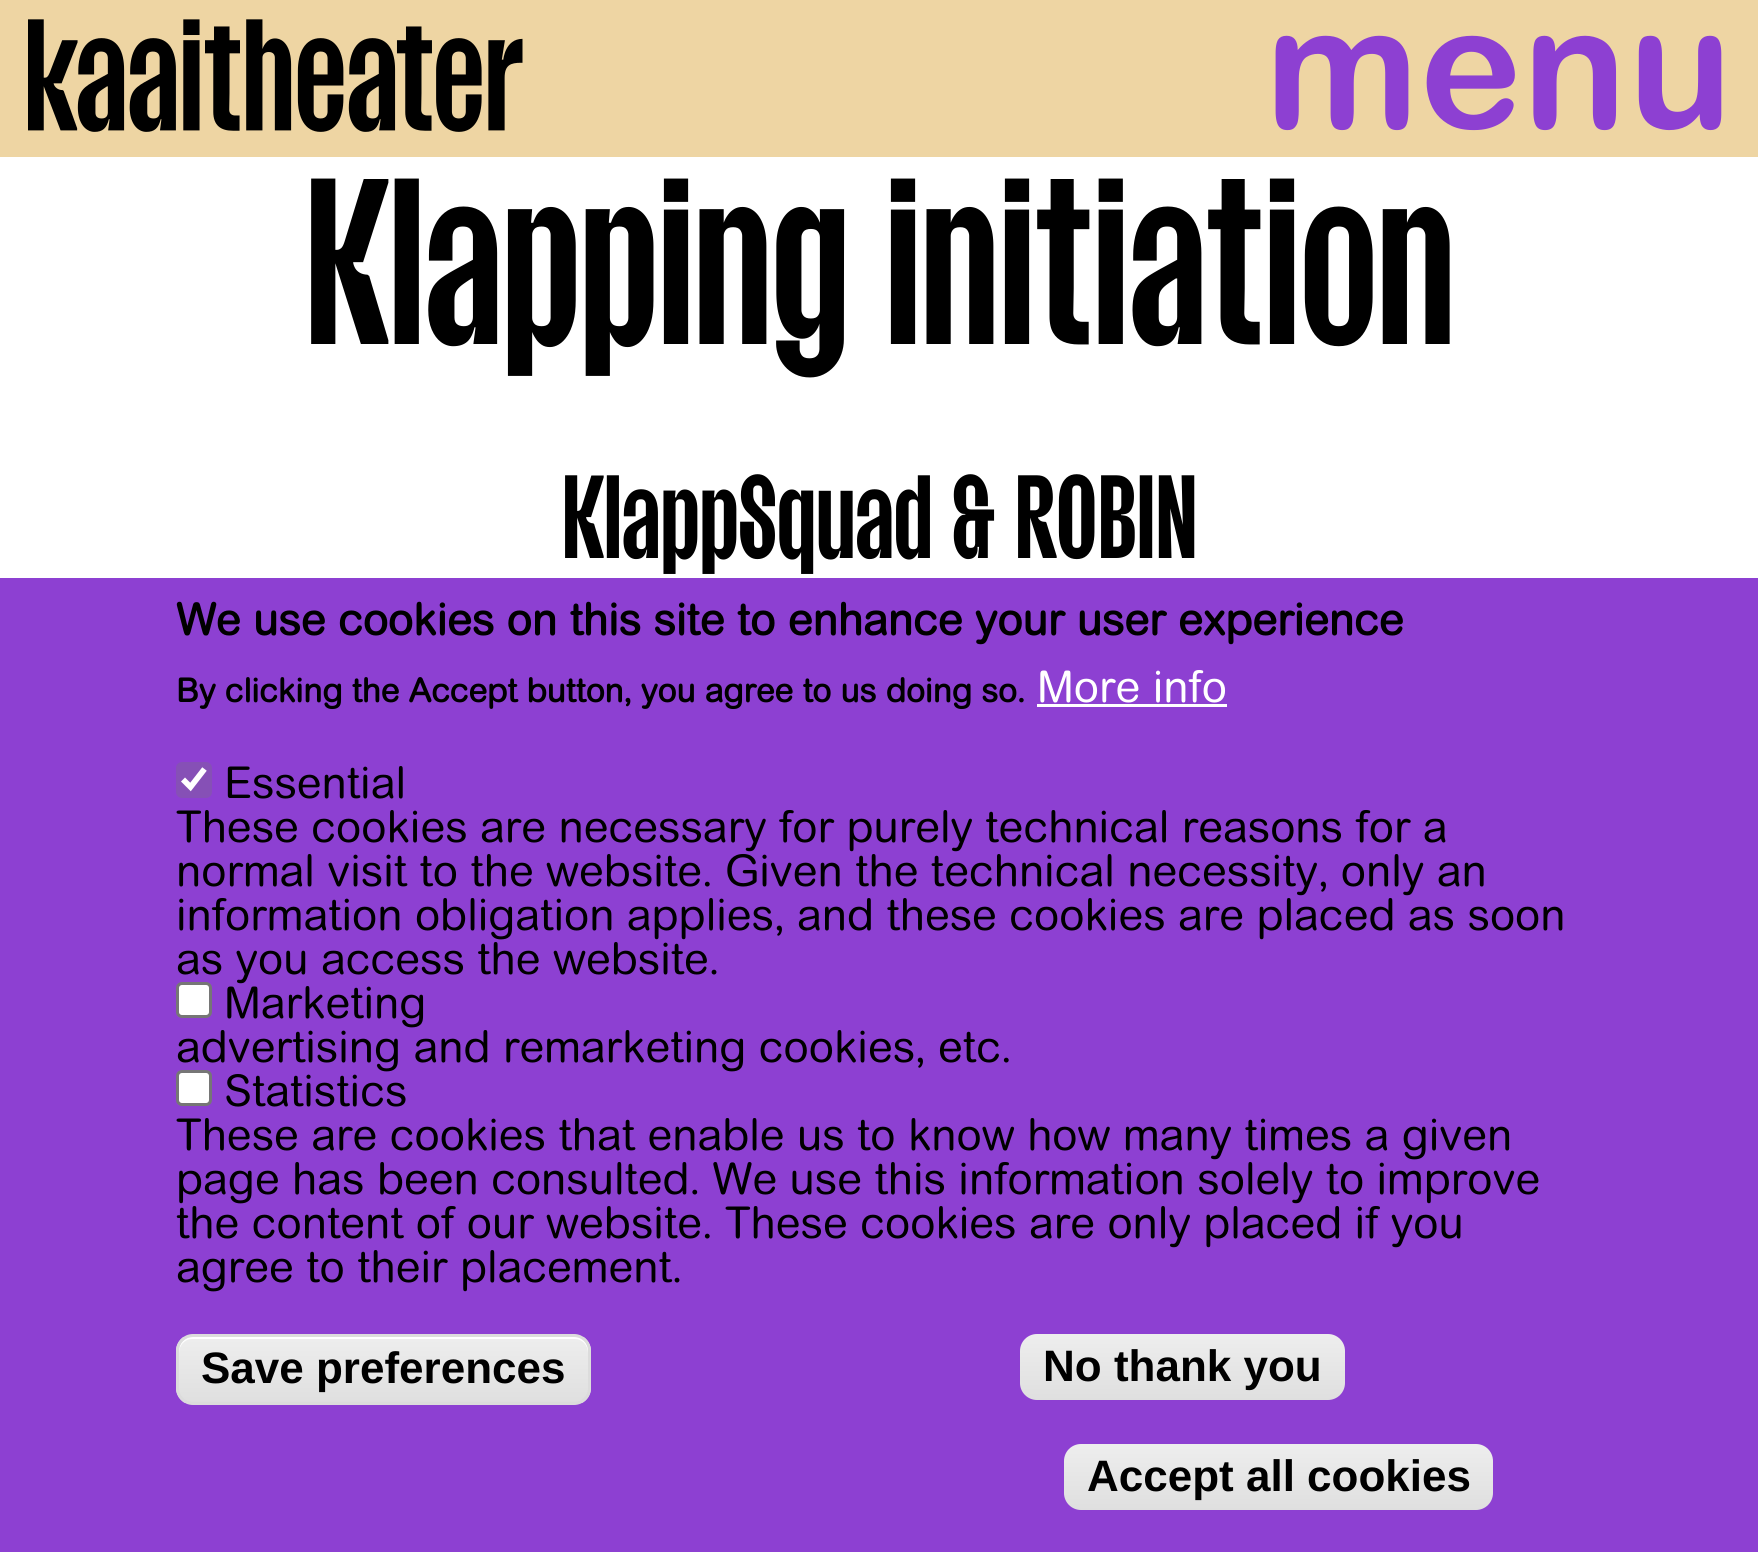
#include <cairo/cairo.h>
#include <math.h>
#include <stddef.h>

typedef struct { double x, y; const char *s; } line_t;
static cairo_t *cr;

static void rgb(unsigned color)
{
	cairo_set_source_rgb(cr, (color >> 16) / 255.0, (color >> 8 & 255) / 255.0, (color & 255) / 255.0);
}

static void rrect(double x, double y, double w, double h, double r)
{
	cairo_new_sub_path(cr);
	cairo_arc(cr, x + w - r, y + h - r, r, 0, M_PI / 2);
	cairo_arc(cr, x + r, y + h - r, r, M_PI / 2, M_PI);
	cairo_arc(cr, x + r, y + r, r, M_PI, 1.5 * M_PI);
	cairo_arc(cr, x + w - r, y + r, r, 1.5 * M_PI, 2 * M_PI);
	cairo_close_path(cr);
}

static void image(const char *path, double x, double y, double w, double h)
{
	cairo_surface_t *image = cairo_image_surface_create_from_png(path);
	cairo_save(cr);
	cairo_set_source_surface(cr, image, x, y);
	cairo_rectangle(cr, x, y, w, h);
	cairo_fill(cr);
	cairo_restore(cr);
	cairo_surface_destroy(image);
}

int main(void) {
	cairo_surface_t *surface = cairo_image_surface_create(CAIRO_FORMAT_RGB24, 1758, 1552);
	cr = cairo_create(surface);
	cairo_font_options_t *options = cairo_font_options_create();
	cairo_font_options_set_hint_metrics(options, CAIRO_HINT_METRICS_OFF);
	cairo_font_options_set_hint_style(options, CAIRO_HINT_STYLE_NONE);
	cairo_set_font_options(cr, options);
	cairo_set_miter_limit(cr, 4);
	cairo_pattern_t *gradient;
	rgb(0xffffff);
	cairo_paint(cr);
	rgb(0xeed5a3);
	cairo_rectangle(cr, 0, 0, 1758, 157);
	cairo_fill(cr);
	image("img/1.png", 28, 19, 495, 113);
	rgb(0x8d40d2);
	cairo_rectangle(cr, 0, 578, 1758, 974);
	cairo_fill(cr);
	rgb(0xffffff);
	cairo_rectangle(cr, 1037, 704, 190, 3);
	cairo_fill(cr);
	rgb(0x8650b6);
	rrect(176, 762, 36, 36, 6);
	cairo_fill(cr);
	cairo_new_path(cr);
	cairo_move_to(cr, 183, 779.5);
	cairo_line_to(cr, 190.5, 787);
	cairo_line_to(cr, 204.5, 769);
	rgb(0xffffff);
	cairo_set_line_width(cr, 5.7);
	cairo_stroke(cr);
	cairo_save(cr);
	rrect(176, 1334, 415, 71, 17);
	cairo_clip(cr);
	gradient = cairo_pattern_create_linear(384, 1337, 384, 1403);
	cairo_pattern_add_color_stop_rgba(gradient, 0.05, 0.929, 0.929, 0.929, 1);
	cairo_pattern_add_color_stop_rgba(gradient, 1, 0.875, 0.875, 0.875, 1);
	cairo_set_source(cr, gradient);
	cairo_pattern_destroy(gradient);
	cairo_rectangle(cr, 176, 1337, 415, 66);
	cairo_fill(cr);
	cairo_restore(cr);
	cairo_new_path(cr);
	cairo_move_to(cr, 192, 1339);
	cairo_line_to(cr, 575, 1339);
	cairo_curve_to(cr, 582, 1339, 588, 1345, 588, 1353);
	cairo_line_to(cr, 588, 1392);
	cairo_line_to(cr, 588, 1395);
	cairo_curve_to(cr, 588, 1393, 589, 1391, 589, 1389);
	cairo_line_to(cr, 589, 1351);
	cairo_curve_to(cr, 589, 1343, 583, 1337, 575, 1337);
	cairo_line_to(cr, 193, 1337);
	cairo_curve_to(cr, 185, 1337, 179, 1343, 179, 1351);
	cairo_line_to(cr, 179, 1353);
	cairo_curve_to(cr, 179, 1345, 185, 1339, 192, 1339);
	cairo_close_path(cr);
	cairo_fill(cr);
	rrect(177.5, 1335.5, 412, 68, 15.5);
	rgb(0xdcdcdc);
	cairo_set_line_width(cr, 3);
	cairo_stroke(cr);
	gradient = cairo_pattern_create_linear(1183, 1334, 1183, 1400);
	cairo_pattern_add_color_stop_rgba(gradient, 0.05, 0.929, 0.929, 0.929, 1);
	cairo_pattern_add_color_stop_rgba(gradient, 1, 0.875, 0.875, 0.875, 1);
	cairo_set_source(cr, gradient);
	cairo_pattern_destroy(gradient);
	rrect(1020, 1334, 325, 66, 17);
	cairo_fill(cr);
	gradient = cairo_pattern_create_linear(1279, 1444, 1279, 1510);
	cairo_pattern_add_color_stop_rgba(gradient, 0.05, 0.929, 0.929, 0.929, 1);
	cairo_pattern_add_color_stop_rgba(gradient, 1, 0.875, 0.875, 0.875, 1);
	cairo_set_source(cr, gradient);
	cairo_pattern_destroy(gradient);
	rrect(1064, 1444, 429, 66, 17);
	cairo_fill(cr);
	cairo_select_font_face(cr, "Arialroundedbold", CAIRO_FONT_SLANT_NORMAL, CAIRO_FONT_WEIGHT_BOLD);
	cairo_set_font_size(cr, 174);
	rgb(0x8d40d2);
	cairo_move_to(cr, 1265, 128);
	cairo_show_text(cr, "menu");
	cairo_select_font_face(cr, "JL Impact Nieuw", CAIRO_FONT_SLANT_NORMAL, CAIRO_FONT_WEIGHT_NORMAL);
	cairo_set_font_size(cr, 220);
	rgb(0x000000);
	cairo_move_to(cr, 305, 344);
	cairo_show_text(cr, "Klapping initiation");
	cairo_set_font_size(cr, 110);
	cairo_move_to(cr, 562, 558);
	cairo_show_text(cr, "KlappSquad & ROBIN");
	cairo_select_font_face(cr, "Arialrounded", CAIRO_FONT_SLANT_NORMAL, CAIRO_FONT_WEIGHT_BOLD);
	cairo_set_font_size(cr, 44);
	cairo_move_to(cr, 176, 635);
	cairo_show_text(cr, "We use cookies on this site to enhance your user experience");
	cairo_set_font_size(cr, 33);
	cairo_move_to(cr, 176, 702);
	cairo_show_text(cr, "By clicking the Accept button, you agree to us doing so.");
	cairo_select_font_face(cr, "Arialrounded", CAIRO_FONT_SLANT_NORMAL, CAIRO_FONT_WEIGHT_NORMAL);
	cairo_set_font_size(cr, 44);
	rgb(0xffffff);
	cairo_move_to(cr, 1037, 702);
	cairo_show_text(cr, "More info");
	rgb(0x000000);
	{
		static const line_t items[] = {
			{224, 798, "Essential"},
			{176, 842, "These cookies are necessary for purely technical reasons for a"},
			{176, 886, "normal visit to the website. Given the technical necessity, only an"},
			{176, 930, "information obligation applies, and these cookies are placed as soon"},
			{176, 974, "as you access the website."},
		};
		for (size_t i = 0; i < sizeof items / sizeof *items; i++) {
			cairo_move_to(cr, items[i].x, items[i].y);
			cairo_show_text(cr, items[i].s);
		}
	}
	rgb(0xffffff);
	rrect(177.5, 983.5, 33, 33, 4.5);
	cairo_fill_preserve(cr);
	rgb(0x767676);
	cairo_stroke(cr);
	rgb(0x000000);
	cairo_move_to(cr, 224, 1018);
	cairo_show_text(cr, "Marketing");
	cairo_move_to(cr, 176, 1062);
	cairo_show_text(cr, "advertising and remarketing cookies, etc.");
	rgb(0xffffff);
	rrect(177.5, 1071.5, 33, 33, 4.5);
	cairo_fill_preserve(cr);
	rgb(0x767676);
	cairo_stroke(cr);
	rgb(0x000000);
	{
		static const line_t items[] = {
			{224, 1106, "Statistics"},
			{176, 1150, "These are cookies that enable us to know how many times a given"},
			{176, 1194, "page has been consulted. We use this information solely to improve"},
			{176, 1238, "the content of our website. These cookies are only placed if you"},
			{176, 1282, "agree to their placement."},
		};
		for (size_t i = 0; i < sizeof items / sizeof *items; i++) {
			cairo_move_to(cr, items[i].x, items[i].y);
			cairo_show_text(cr, items[i].s);
		}
	}
	cairo_select_font_face(cr, "Liberation Sans", CAIRO_FONT_SLANT_NORMAL, CAIRO_FONT_WEIGHT_BOLD);
	{
		static const line_t items[] = {
			{201, 1383, "Save preferences"},
			{1043, 1381, "No thank you"},
			{1087, 1491, "Accept all cookies"},
		};
		for (size_t i = 0; i < sizeof items / sizeof *items; i++) {
			cairo_move_to(cr, items[i].x, items[i].y);
			cairo_show_text(cr, items[i].s);
		}
	}
	cairo_surface_write_to_png(surface, "page.png");
	cairo_font_options_destroy(options);
	cairo_destroy(cr);
	cairo_surface_destroy(surface);
	return 0;
}
